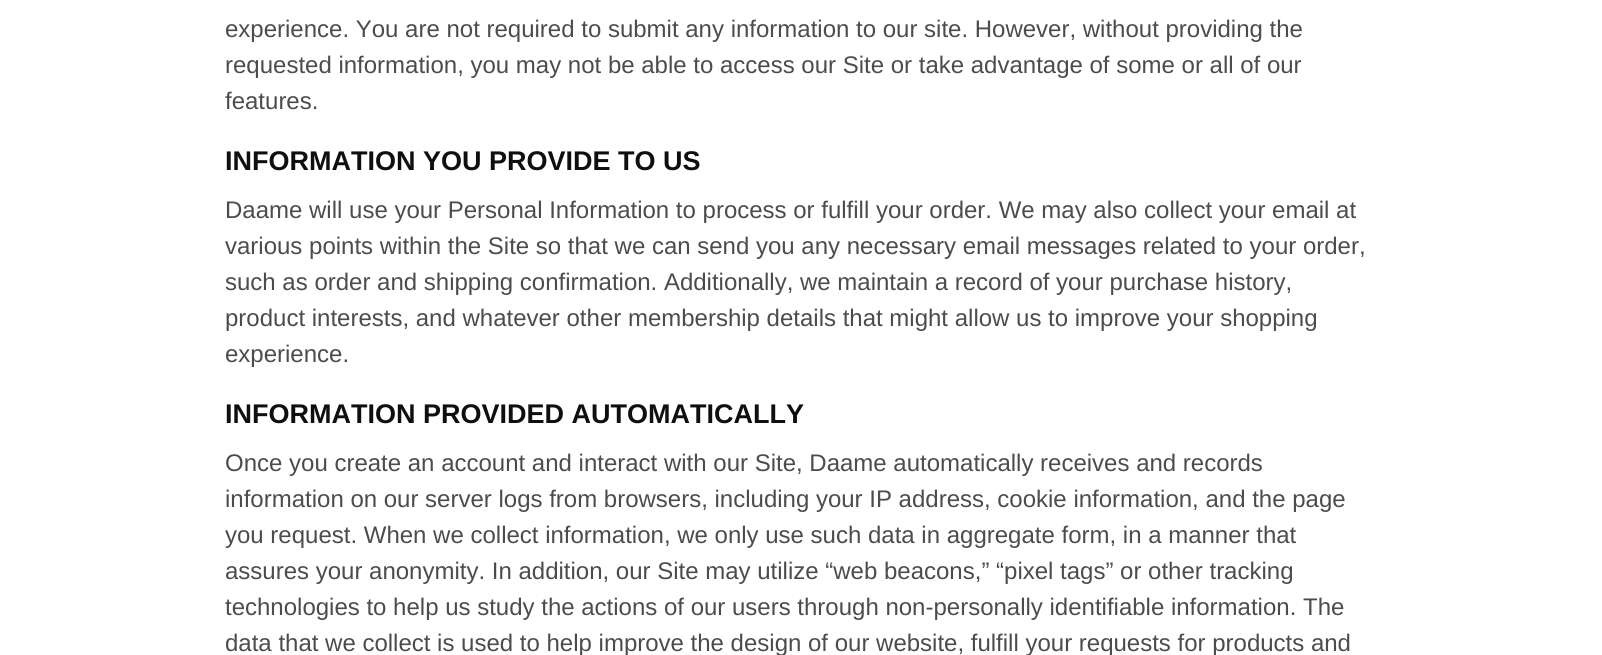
#include <cairo/cairo.h>
#include <math.h>
#include <stddef.h>

typedef struct { double x, y; const char *s; } line_t;
static cairo_t *cr;

static void rgb(unsigned color)
{
	cairo_set_source_rgb(cr, (color >> 16) / 255.0, (color >> 8 & 255) / 255.0, (color & 255) / 255.0);
}

int main(void) {
	cairo_surface_t *surface = cairo_image_surface_create(CAIRO_FORMAT_RGB24, 1602, 655);
	cr = cairo_create(surface);
	cairo_font_options_t *options = cairo_font_options_create();
	cairo_font_options_set_hint_metrics(options, CAIRO_HINT_METRICS_OFF);
	cairo_font_options_set_hint_style(options, CAIRO_HINT_STYLE_NONE);
	cairo_set_font_options(cr, options);
	cairo_set_miter_limit(cr, 4);
	rgb(0xffffff);
	cairo_paint(cr);
	cairo_select_font_face(cr, "Liberation Sans", CAIRO_FONT_SLANT_NORMAL, CAIRO_FONT_WEIGHT_NORMAL);
	cairo_set_font_size(cr, 24);
	rgb(0x4c4c4c);
	{
		static const line_t items[] = {
			{225, 37, "experience. You are not required to submit any information to our site. However, without providing the"},
			{225, 73, "requested information, you may not be able to access our Site or take advantage of some or all of our"},
			{225, 109, "features."},
		};
		for (size_t i = 0; i < sizeof items / sizeof *items; i++) {
			cairo_move_to(cr, items[i].x, items[i].y);
			cairo_show_text(cr, items[i].s);
		}
	}
	cairo_select_font_face(cr, "Liberation Sans", CAIRO_FONT_SLANT_NORMAL, CAIRO_FONT_WEIGHT_BOLD);
	cairo_set_font_size(cr, 27);
	rgb(0x0f0f0f);
	cairo_move_to(cr, 225, 170);
	cairo_show_text(cr, "INFORMATION YOU PROVIDE TO US");
	cairo_select_font_face(cr, "Liberation Sans", CAIRO_FONT_SLANT_NORMAL, CAIRO_FONT_WEIGHT_NORMAL);
	cairo_set_font_size(cr, 24);
	rgb(0x4c4c4c);
	{
		static const line_t items[] = {
			{225, 218, "Daame will use your Personal Information to process or fulfill your order. We may also collect your email at"},
			{225, 254, "various points within the Site so that we can send you any necessary email messages related to your order,"},
			{225, 290, "such as order and shipping confirmation. Additionally, we maintain a record of your purchase history,"},
			{225, 326, "product interests, and whatever other membership details that might allow us to improve your shopping"},
			{225, 362, "experience."},
		};
		for (size_t i = 0; i < sizeof items / sizeof *items; i++) {
			cairo_move_to(cr, items[i].x, items[i].y);
			cairo_show_text(cr, items[i].s);
		}
	}
	cairo_select_font_face(cr, "Liberation Sans", CAIRO_FONT_SLANT_NORMAL, CAIRO_FONT_WEIGHT_BOLD);
	cairo_set_font_size(cr, 27);
	rgb(0x0f0f0f);
	cairo_move_to(cr, 225, 423);
	cairo_show_text(cr, "INFORMATION PROVIDED AUTOMATICALLY");
	cairo_select_font_face(cr, "Liberation Sans", CAIRO_FONT_SLANT_NORMAL, CAIRO_FONT_WEIGHT_NORMAL);
	cairo_set_font_size(cr, 24);
	rgb(0x4c4c4c);
	{
		static const line_t items[] = {
			{225, 471, "Once you create an account and interact with our Site, Daame automatically receives and records"},
			{225, 507, "information on our server logs from browsers, including your IP address, cookie information, and the page"},
			{225, 543, "you request. When we collect information, we only use such data in aggregate form, in a manner that"},
			{225, 579, "assures your anonymity. In addition, our Site may utilize “web beacons,” “pixel tags” or other tracking"},
			{225, 615, "technologies to help us study the actions of our users through non-personally identifiable information. The"},
			{225, 651, "data that we collect is used to help improve the design of our website, fulfill your requests for products and"},
		};
		for (size_t i = 0; i < sizeof items / sizeof *items; i++) {
			cairo_move_to(cr, items[i].x, items[i].y);
			cairo_show_text(cr, items[i].s);
		}
	}
	cairo_surface_write_to_png(surface, "page.png");
	cairo_font_options_destroy(options);
	cairo_destroy(cr);
	cairo_surface_destroy(surface);
	return 0;
}
